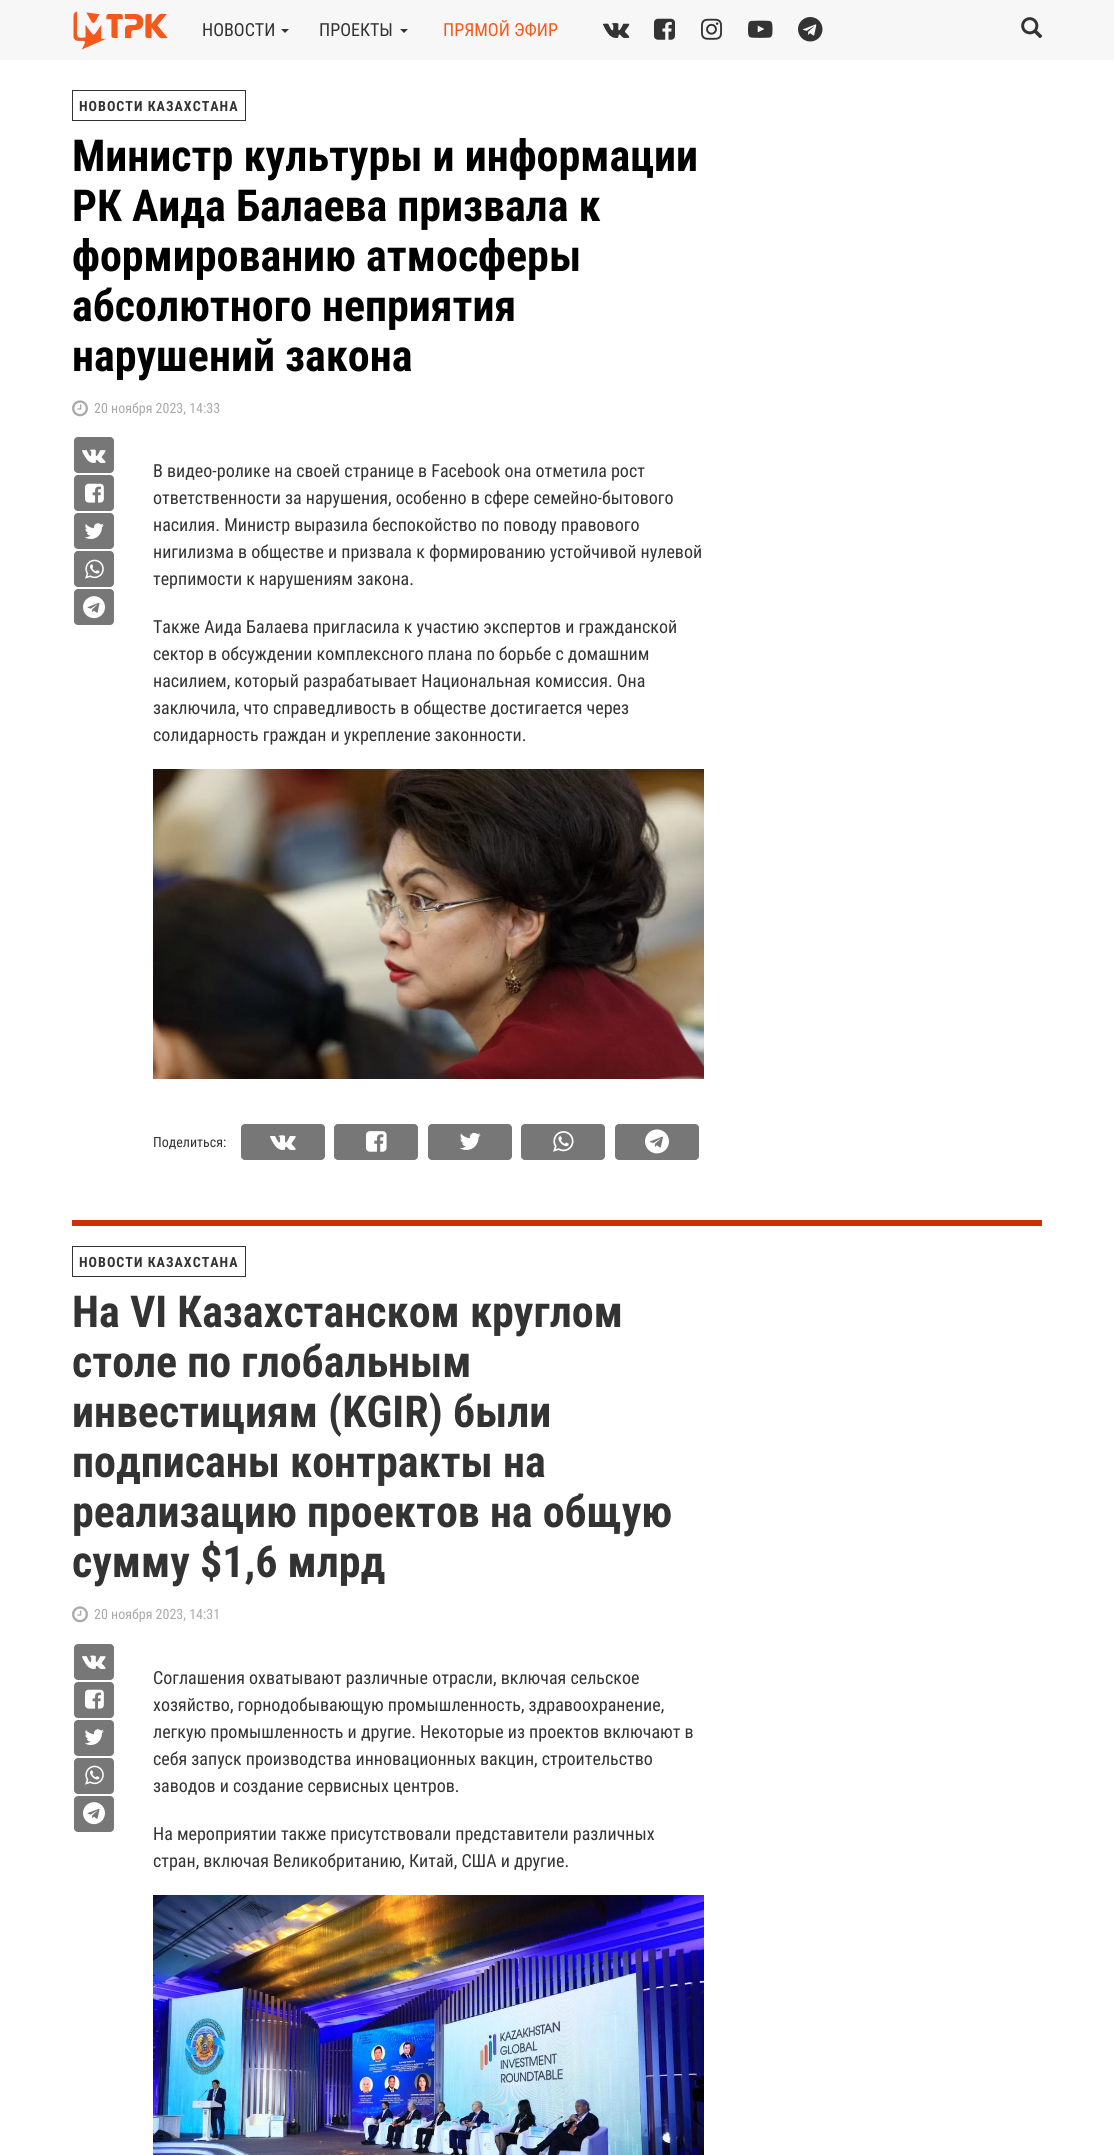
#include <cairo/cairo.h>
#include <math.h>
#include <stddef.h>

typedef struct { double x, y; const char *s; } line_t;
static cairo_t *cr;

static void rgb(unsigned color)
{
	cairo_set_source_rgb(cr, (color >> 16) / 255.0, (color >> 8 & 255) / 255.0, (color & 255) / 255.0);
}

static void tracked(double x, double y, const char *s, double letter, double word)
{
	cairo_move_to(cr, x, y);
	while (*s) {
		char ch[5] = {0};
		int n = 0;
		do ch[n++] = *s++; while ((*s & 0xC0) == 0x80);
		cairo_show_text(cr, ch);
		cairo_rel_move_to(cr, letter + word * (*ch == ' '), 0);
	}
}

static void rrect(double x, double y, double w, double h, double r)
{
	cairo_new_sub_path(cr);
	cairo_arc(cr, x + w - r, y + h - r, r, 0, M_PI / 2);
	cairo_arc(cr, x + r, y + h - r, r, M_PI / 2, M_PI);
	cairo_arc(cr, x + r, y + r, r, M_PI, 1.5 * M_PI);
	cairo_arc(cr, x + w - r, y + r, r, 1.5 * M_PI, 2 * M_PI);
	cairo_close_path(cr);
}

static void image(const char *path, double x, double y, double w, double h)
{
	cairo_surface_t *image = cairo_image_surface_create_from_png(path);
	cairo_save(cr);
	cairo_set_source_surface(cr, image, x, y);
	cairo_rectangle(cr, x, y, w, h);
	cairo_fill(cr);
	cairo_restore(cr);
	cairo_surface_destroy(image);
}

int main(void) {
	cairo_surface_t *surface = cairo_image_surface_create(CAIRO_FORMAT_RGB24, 1114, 2155);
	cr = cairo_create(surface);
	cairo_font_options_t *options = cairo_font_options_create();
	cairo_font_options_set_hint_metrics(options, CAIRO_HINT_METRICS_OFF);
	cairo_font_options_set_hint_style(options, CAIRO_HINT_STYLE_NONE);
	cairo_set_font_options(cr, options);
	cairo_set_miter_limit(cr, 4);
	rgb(0xffffff);
	cairo_paint(cr);
	rgb(0xf7f7f7);
	cairo_rectangle(cr, 0, 0, 1114, 60);
	cairo_fill(cr);
	image("img/1.png", 73, 11, 95, 39);
	rgb(0x333333);
	cairo_new_path(cr);
	cairo_move_to(cr, 281, 29);
	cairo_line_to(cr, 289, 29);
	cairo_line_to(cr, 285, 33);
	cairo_close_path(cr);
	cairo_fill(cr);
	cairo_new_path(cr);
	cairo_move_to(cr, 400, 29);
	cairo_line_to(cr, 408, 29);
	cairo_line_to(cr, 404, 33);
	cairo_close_path(cr);
	cairo_fill(cr);
	image("img/2.png", 603, 23, 27, 15);
	image("img/3.png", 654, 18, 21, 22);
	image("img/4.png", 701, 18, 21, 22);
	image("img/5.png", 748, 20, 25, 18);
	image("img/6.png", 798, 17, 25, 25);
	image("img/7.png", 1021, 17, 22, 22);
	cairo_rectangle(cr, 72.5, 90.5, 173, 30);
	cairo_set_line_width(cr, 1);
	cairo_stroke(cr);
	image("img/8.png", 72, 400, 16, 17);
	rgb(0x777777);
	rrect(74, 437, 40, 36, 4);
	cairo_fill(cr);
	image("img/9.png", 82, 449, 24, 14);
	rrect(74, 475, 40, 36, 4);
	cairo_fill(cr);
	image("img/10.png", 85, 483, 19, 20);
	rrect(74, 513, 40, 36, 4);
	cairo_fill(cr);
	image("img/11.png", 84, 523, 20, 16);
	rrect(74, 551, 40, 36, 4);
	cairo_fill(cr);
	image("img/12.png", 85, 559, 19, 20);
	rrect(74, 589, 40, 36, 4);
	cairo_fill(cr);
	image("img/13.png", 83, 596, 22, 23);
	image("img/14.png", 153, 769, 551, 310);
	rrect(241, 1124, 84, 36, 4);
	cairo_fill(cr);
	image("img/15.png", 270, 1135, 26, 15);
	rrect(334, 1124, 84, 36, 4);
	cairo_fill(cr);
	image("img/16.png", 366, 1131, 21, 21);
	rrect(428, 1124, 84, 36, 4);
	cairo_fill(cr);
	image("img/17.png", 459, 1132, 22, 18);
	rrect(521, 1124, 84, 36, 4);
	cairo_fill(cr);
	image("img/18.png", 553, 1131, 21, 21);
	rrect(615, 1124, 84, 36, 4);
	cairo_fill(cr);
	image("img/19.png", 645, 1129, 24, 25);
	rgb(0xcc3000);
	cairo_rectangle(cr, 72, 1220, 970, 6);
	cairo_fill(cr);
	cairo_rectangle(cr, 72.5, 1246.5, 173, 30);
	rgb(0x333333);
	cairo_stroke(cr);
	image("img/8.png", 72, 1606, 16, 17);
	rgb(0x777777);
	rrect(74, 1644, 40, 36, 4);
	cairo_fill(cr);
	image("img/9.png", 82, 1655, 24, 14);
	rrect(74, 1682, 40, 36, 4);
	cairo_fill(cr);
	image("img/10.png", 85, 1689, 19, 20);
	rrect(74, 1720, 40, 36, 4);
	cairo_fill(cr);
	image("img/11.png", 84, 1729, 20, 16);
	rrect(74, 1758, 40, 36, 4);
	cairo_fill(cr);
	image("img/12.png", 85, 1765, 19, 20);
	rrect(74, 1796, 40, 36, 4);
	cairo_fill(cr);
	image("img/13.png", 83, 1802, 22, 23);
	image("img/20.png", 153, 1895, 551, 260);
	cairo_select_font_face(cr, "Roboto Condensed", CAIRO_FONT_SLANT_NORMAL, CAIRO_FONT_WEIGHT_NORMAL);
	cairo_set_font_size(cr, 18);
	rgb(0x333333);
	cairo_move_to(cr, 202, 36);
	cairo_show_text(cr, "НОВОСТИ");
	cairo_move_to(cr, 319, 36);
	cairo_show_text(cr, "ПРОЕКТЫ");
	rgb(0xf4581a);
	cairo_move_to(cr, 443, 36);
	cairo_show_text(cr, "ПРЯМОЙ ЭФИР");
	cairo_select_font_face(cr, "Roboto Condensed", CAIRO_FONT_SLANT_NORMAL, CAIRO_FONT_WEIGHT_BOLD);
	cairo_set_font_size(cr, 14);
	rgb(0x333333);
	tracked(79, 111, "НОВОСТИ КАЗАХСТАНА", 1, 0);
	cairo_set_font_size(cr, 44);
	rgb(0x000000);
	{
		static const line_t items[] = {
			{72, 171, "Министр культуры и информации"},
			{72, 221, "РК Аида Балаева призвала к"},
			{72, 271, "формированию атмосферы"},
			{72, 321, "абсолютного неприятия"},
			{72, 371, "нарушений закона"},
		};
		for (size_t i = 0; i < sizeof items / sizeof *items; i++) {
			cairo_move_to(cr, items[i].x, items[i].y);
			cairo_show_text(cr, items[i].s);
		}
	}
	cairo_select_font_face(cr, "Roboto Condensed", CAIRO_FONT_SLANT_NORMAL, CAIRO_FONT_WEIGHT_NORMAL);
	cairo_set_font_size(cr, 14);
	rgb(0xaaaaaa);
	cairo_move_to(cr, 94, 413);
	cairo_show_text(cr, "20 ноября 2023, 14:33");
	cairo_set_font_size(cr, 18);
	rgb(0x333333);
	{
		static const line_t items[] = {
			{153, 477, "В видео-ролике на своей странице в Facebook она отметила рост"},
			{153, 504, "ответственности за нарушения, особенно в сфере семейно-бытового"},
			{153, 531, "насилия. Министр выразила беспокойство по поводу правового"},
			{153, 558, "нигилизма в обществе и призвала к формированию устойчивой нулевой"},
			{153, 585, "терпимости к нарушениям закона."},
			{153, 633, "Также Аида Балаева пригласила к участию экспертов и гражданской"},
			{153, 660, "сектор в обсуждении комплексного плана по борьбе с домашним"},
			{153, 687, "насилием, который разрабатывает Национальная комиссия. Она"},
			{153, 714, "заключила, что справедливость в обществе достигается через"},
			{153, 741, "солидарность граждан и укрепление законности."},
		};
		for (size_t i = 0; i < sizeof items / sizeof *items; i++) {
			cairo_move_to(cr, items[i].x, items[i].y);
			cairo_show_text(cr, items[i].s);
		}
	}
	cairo_set_font_size(cr, 14);
	cairo_move_to(cr, 153, 1147);
	cairo_show_text(cr, "Поделиться:");
	cairo_select_font_face(cr, "Roboto Condensed", CAIRO_FONT_SLANT_NORMAL, CAIRO_FONT_WEIGHT_BOLD);
	tracked(79, 1267, "НОВОСТИ КАЗАХСТАНА", 1, 0);
	cairo_set_font_size(cr, 44);
	{
		static const line_t items[] = {
			{72, 1327, "На VI Казахстанском круглом"},
			{72, 1377, "столе по глобальным"},
			{72, 1427, "инвестициям (KGIR) были"},
			{72, 1477, "подписаны контракты на"},
			{72, 1527, "реализацию проектов на общую"},
			{72, 1577, "сумму $1,6 млрд"},
		};
		for (size_t i = 0; i < sizeof items / sizeof *items; i++) {
			cairo_move_to(cr, items[i].x, items[i].y);
			cairo_show_text(cr, items[i].s);
		}
	}
	cairo_select_font_face(cr, "Roboto Condensed", CAIRO_FONT_SLANT_NORMAL, CAIRO_FONT_WEIGHT_NORMAL);
	cairo_set_font_size(cr, 14);
	rgb(0xaaaaaa);
	cairo_move_to(cr, 94, 1619);
	cairo_show_text(cr, "20 ноября 2023, 14:31");
	cairo_set_font_size(cr, 18);
	rgb(0x333333);
	{
		static const line_t items[] = {
			{153, 1684, "Соглашения охватывают различные отрасли, включая сельское"},
			{153, 1711, "хозяйство, горнодобывающую промышленность, здравоохранение,"},
			{153, 1738, "легкую промышленность и другие. Некоторые из проектов включают в"},
			{153, 1765, "себя запуск производства инновационных вакцин, строительство"},
			{153, 1792, "заводов и создание сервисных центров."},
			{153, 1840, "На мероприятии также присутствовали представители различных"},
			{153, 1867, "стран, включая Великобританию, Китай, США и другие."},
		};
		for (size_t i = 0; i < sizeof items / sizeof *items; i++) {
			cairo_move_to(cr, items[i].x, items[i].y);
			cairo_show_text(cr, items[i].s);
		}
	}
	cairo_surface_write_to_png(surface, "page.png");
	cairo_font_options_destroy(options);
	cairo_destroy(cr);
	cairo_surface_destroy(surface);
	return 0;
}
